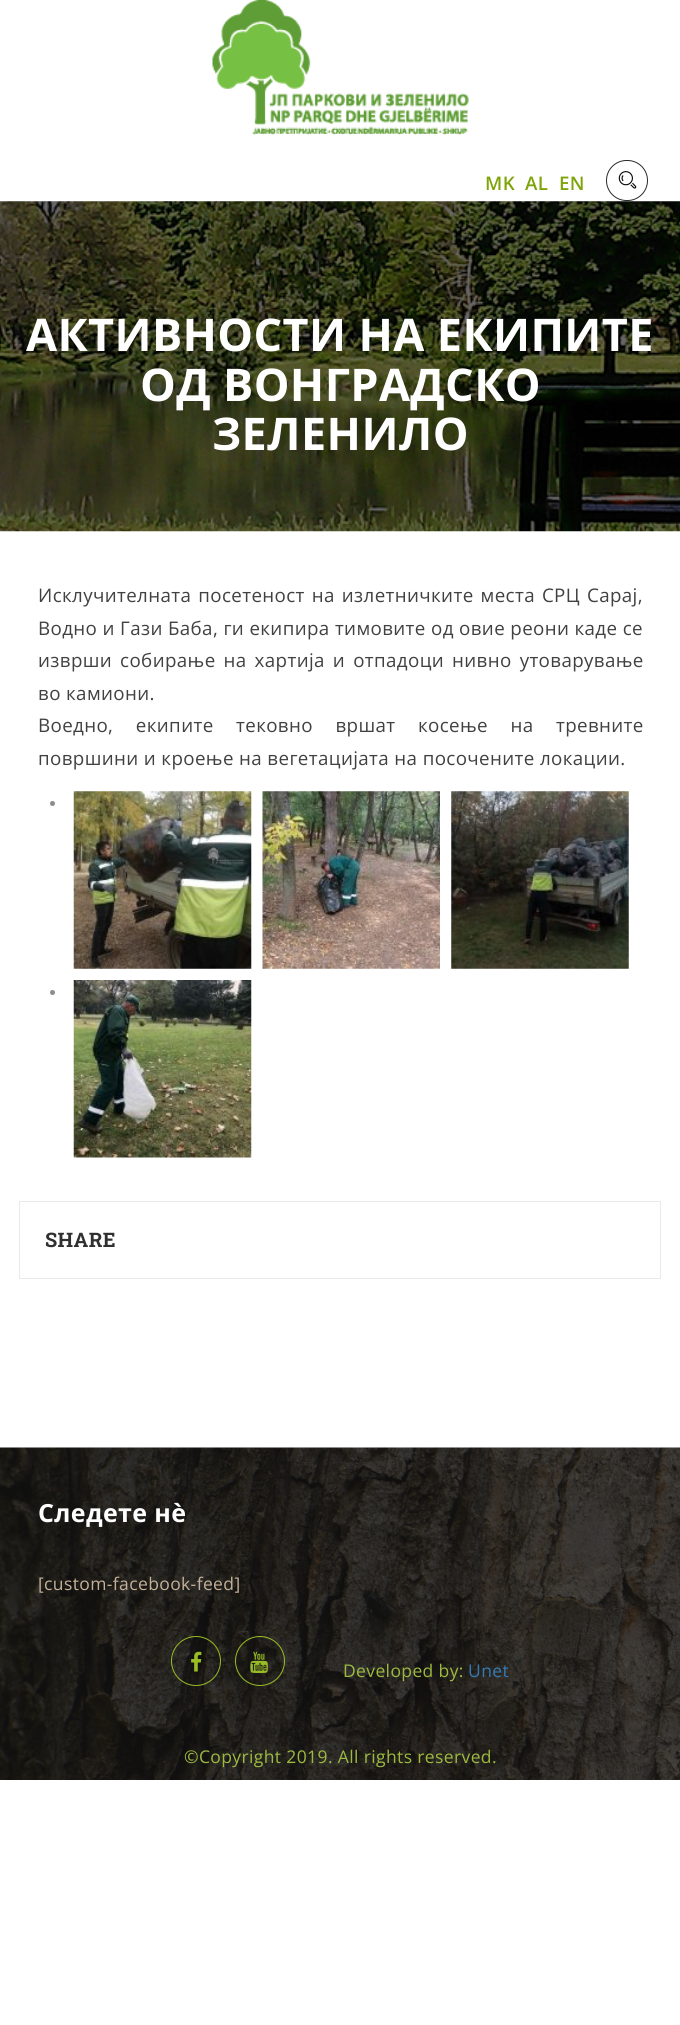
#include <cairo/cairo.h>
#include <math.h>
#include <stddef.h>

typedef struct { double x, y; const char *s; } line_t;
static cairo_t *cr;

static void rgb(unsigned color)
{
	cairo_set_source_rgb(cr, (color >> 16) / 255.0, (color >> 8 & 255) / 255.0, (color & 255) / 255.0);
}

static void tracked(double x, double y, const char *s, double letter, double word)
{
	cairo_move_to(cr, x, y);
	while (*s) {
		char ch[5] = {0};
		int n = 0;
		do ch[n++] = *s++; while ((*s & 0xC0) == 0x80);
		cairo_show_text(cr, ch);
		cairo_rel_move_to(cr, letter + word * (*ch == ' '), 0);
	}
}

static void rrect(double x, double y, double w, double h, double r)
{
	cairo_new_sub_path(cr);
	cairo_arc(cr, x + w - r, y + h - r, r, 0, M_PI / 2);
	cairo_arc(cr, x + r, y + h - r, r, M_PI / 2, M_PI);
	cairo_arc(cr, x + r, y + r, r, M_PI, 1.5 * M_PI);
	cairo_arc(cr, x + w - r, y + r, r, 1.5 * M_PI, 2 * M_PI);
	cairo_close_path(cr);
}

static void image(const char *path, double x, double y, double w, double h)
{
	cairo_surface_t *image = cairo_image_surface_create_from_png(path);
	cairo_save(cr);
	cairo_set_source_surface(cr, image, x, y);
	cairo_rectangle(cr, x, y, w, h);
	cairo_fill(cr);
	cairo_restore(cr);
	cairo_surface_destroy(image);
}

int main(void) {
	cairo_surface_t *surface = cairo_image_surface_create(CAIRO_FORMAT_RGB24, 680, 2025);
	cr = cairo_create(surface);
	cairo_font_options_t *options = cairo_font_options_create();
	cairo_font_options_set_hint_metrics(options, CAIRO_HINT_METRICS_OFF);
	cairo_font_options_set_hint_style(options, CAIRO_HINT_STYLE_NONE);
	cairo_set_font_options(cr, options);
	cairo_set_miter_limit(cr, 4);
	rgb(0xffffff);
	cairo_paint(cr);
	image("img/1.png", 212, 0, 257, 135);
	rrect(606.5, 160.5, 41, 40, 20);
	rgb(0x2a2a2a);
	cairo_set_line_width(cr, 1);
	cairo_stroke(cr);
	image("img/2.png", 618, 171, 19, 18);
	image("img/3.png", 0, 201, 680, 331);
	rgb(0x8e8d8d);
	cairo_arc(cr, 52.5, 803.5, 2.5, 0, 2 * M_PI);
	cairo_fill(cr);
	image("img/4.png", 73, 791, 179, 178);
	cairo_arc(cr, 241.5, 803.5, 2.5, 0, 2 * M_PI);
	cairo_fill(cr);
	image("img/5.png", 262, 791, 178, 178);
	cairo_arc(cr, 430.5, 803.5, 2.5, 0, 2 * M_PI);
	cairo_fill(cr);
	image("img/6.png", 451, 791, 178, 178);
	cairo_arc(cr, 52.5, 992.5, 2.5, 0, 2 * M_PI);
	cairo_fill(cr);
	image("img/7.png", 73, 980, 179, 178);
	cairo_rectangle(cr, 19.5, 1201.5, 641, 77);
	rgb(0xe9e9e9);
	cairo_stroke(cr);
	image("img/8.png", 0, 1447, 680, 333);
	cairo_arc(cr, 196, 1661, 24.5, 0, 2 * M_PI);
	rgb(0x98bc24);
	cairo_stroke(cr);
	image("img/9.png", 191, 1651, 11, 21);
	cairo_arc(cr, 260, 1661, 24.5, 0, 2 * M_PI);
	cairo_stroke(cr);
	image("img/10.png", 250, 1651, 18, 22);
	cairo_select_font_face(cr, "Open Sans SemiBold", CAIRO_FONT_SLANT_NORMAL, CAIRO_FONT_WEIGHT_NORMAL);
	cairo_set_font_size(cr, 18.75);
	rgb(0x7fa409);
	{
		static const line_t items[] = {
			{485, 190, "MK"},
			{525, 190, "AL"},
			{559, 190, "EN"},
		};
		for (size_t i = 0; i < sizeof items / sizeof *items; i++) {
			tracked(items[i].x, items[i].y, items[i].s, 0.38, 0);
		}
	}
	cairo_select_font_face(cr, "Open Sans", CAIRO_FONT_SLANT_NORMAL, CAIRO_FONT_WEIGHT_BOLD);
	cairo_set_font_size(cr, 45);
	rgb(0xffffff);
	{
		static const line_t items[] = {
			{26, 351, "АКТИВНОСТИ НА ЕКИПИТЕ"},
			{140, 401, "ОД ВОНГРАДСКО"},
			{212, 450, "ЗЕЛЕНИЛО"},
		};
		for (size_t i = 0; i < sizeof items / sizeof *items; i++) {
			tracked(items[i].x, items[i].y, items[i].s, 0.38, 0);
		}
	}
	cairo_select_font_face(cr, "Open Sans", CAIRO_FONT_SLANT_NORMAL, CAIRO_FONT_WEIGHT_NORMAL);
	cairo_set_font_size(cr, 18.75);
	rgb(0x424141);
	tracked(38, 602, "Исклучителната посетеност на излетничките места СРЦ Сарај,", 0.38, 1.75);
	tracked(38, 635, "Водно и Гази Баба, ги екипира тимовите од овие реони каде се", 0.38, 0);
	tracked(38, 667, "изврши собирање на хартија и отпадоци нивно утоварување", 0.38, 2.75);
	tracked(38, 700, "во камиони.", 0.38, 0);
	tracked(38, 732, "Воедно, екипите тековно вршат косење на тревните", 0.38, 17.25);
	tracked(38, 765, "површини и кроење на вегетацијата на посочените локации.", 0.38, 0);
	cairo_select_font_face(cr, "Roboto Slab", CAIRO_FONT_SLANT_NORMAL, CAIRO_FONT_WEIGHT_BOLD);
	cairo_set_font_size(cr, 20);
	rgb(0x303030);
	tracked(45, 1247, "SHARE", 0.38, 0);
	cairo_select_font_face(cr, "Open Sans", CAIRO_FONT_SLANT_NORMAL, CAIRO_FONT_WEIGHT_BOLD);
	cairo_set_font_size(cr, 25);
	rgb(0xffffff);
	tracked(38, 1522, "Следете нè", 0.38, 0);
	cairo_select_font_face(cr, "Open Sans", CAIRO_FONT_SLANT_NORMAL, CAIRO_FONT_WEIGHT_NORMAL);
	cairo_set_font_size(cr, 17.5);
	rgb(0xc5b199);
	tracked(38, 1590, "[custom-facebook-feed]", 0.38, 0);
	rgb(0x9dba3f);
	tracked(343, 1677, "Developed by:", 0.38, 0);
	rgb(0x337ab7);
	tracked(468, 1677, "Unet", 0.38, 0);
	rgb(0x9dba3f);
	tracked(184, 1763, "©Copyright 2019. All rights reserved.", 0.38, 0);
	cairo_surface_write_to_png(surface, "page.png");
	cairo_font_options_destroy(options);
	cairo_destroy(cr);
	cairo_surface_destroy(surface);
	return 0;
}
